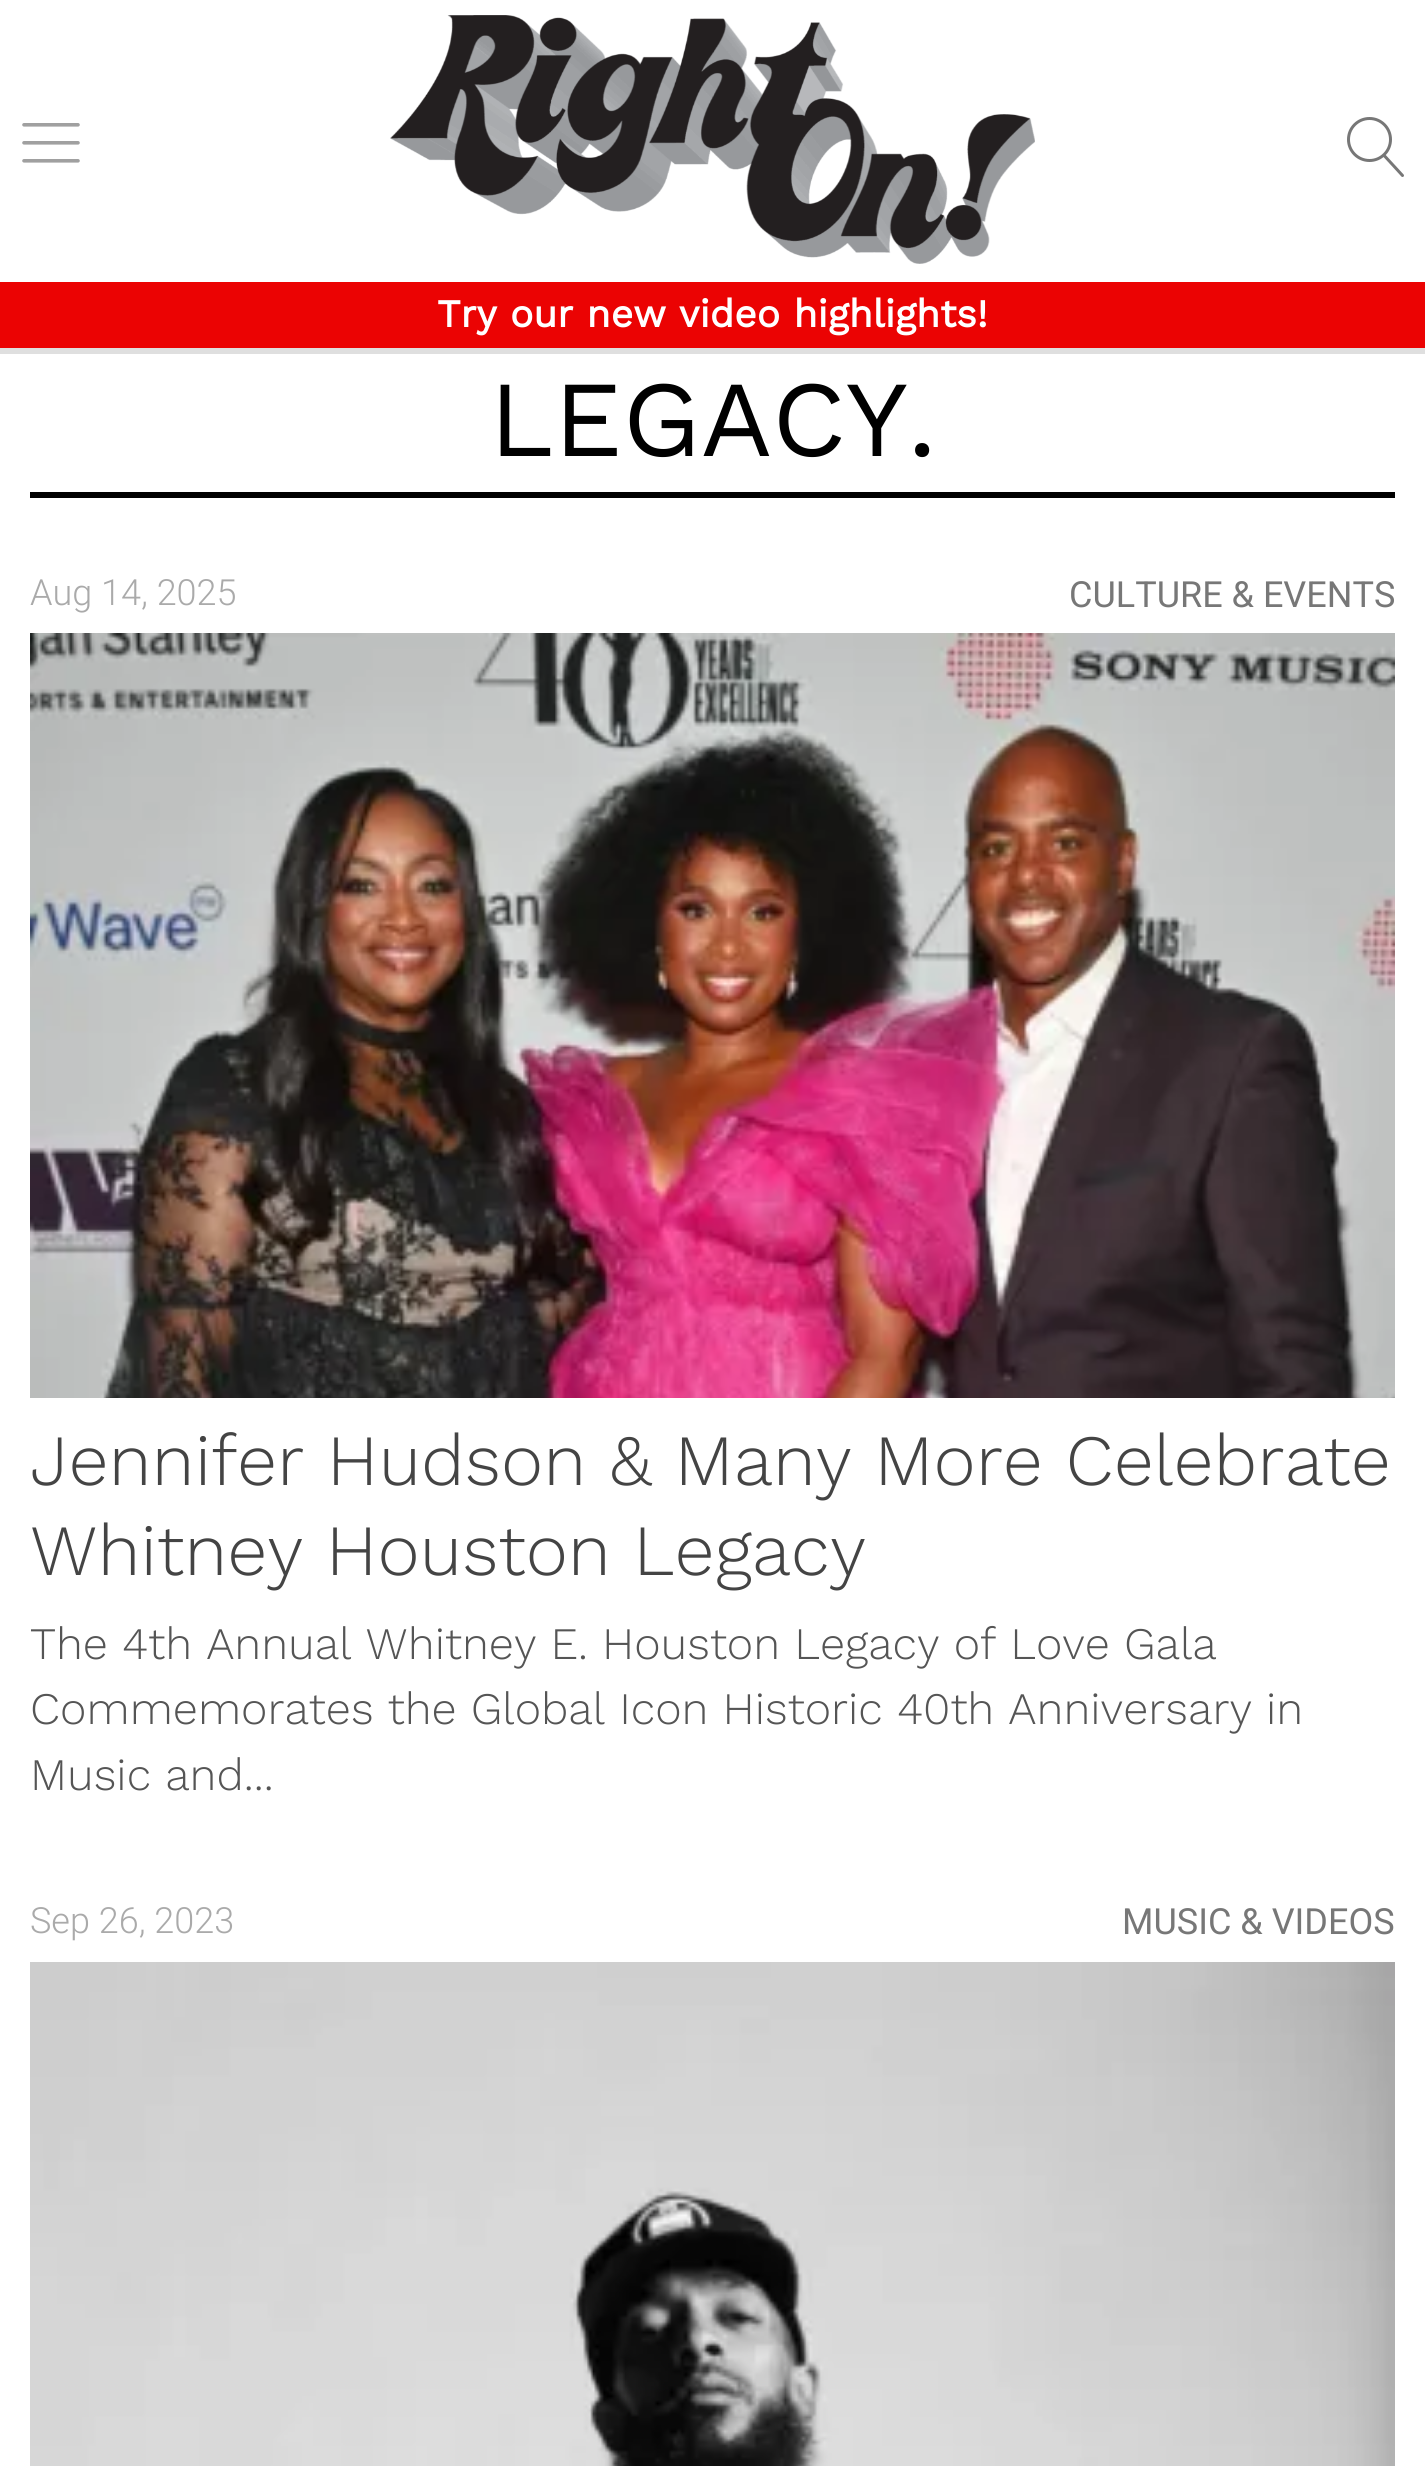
#include <cairo/cairo.h>
#include <math.h>
#include <stddef.h>

typedef struct { double x, y; const char *s; } line_t;
static cairo_t *cr;

static void rgb(unsigned color)
{
	cairo_set_source_rgb(cr, (color >> 16) / 255.0, (color >> 8 & 255) / 255.0, (color & 255) / 255.0);
}

static void image(const char *path, double x, double y, double w, double h)
{
	cairo_surface_t *image = cairo_image_surface_create_from_png(path);
	cairo_save(cr);
	cairo_set_source_surface(cr, image, x, y);
	cairo_rectangle(cr, x, y, w, h);
	cairo_fill(cr);
	cairo_restore(cr);
	cairo_surface_destroy(image);
}

int main(void) {
	cairo_surface_t *surface = cairo_image_surface_create(CAIRO_FORMAT_RGB24, 1425, 2466);
	cr = cairo_create(surface);
	cairo_font_options_t *options = cairo_font_options_create();
	cairo_font_options_set_hint_metrics(options, CAIRO_HINT_METRICS_OFF);
	cairo_font_options_set_hint_style(options, CAIRO_HINT_STYLE_NONE);
	cairo_set_font_options(cr, options);
	cairo_set_miter_limit(cr, 4);
	rgb(0xffffff);
	cairo_paint(cr);
	rgb(0xdfdfdf);
	cairo_rectangle(cr, 0, 348, 1425, 6);
	cairo_fill(cr);
	image("img/1.png", 22, 123, 58, 40);
	image("img/2.png", 390, 15, 645, 249);
	image("img/3.png", 1347, 117, 57, 60);
	rgb(0xeb0303);
	cairo_rectangle(cr, 0, 282, 1425, 66);
	cairo_fill(cr);
	rgb(0x000000);
	cairo_rectangle(cr, 30, 492, 1365, 6);
	cairo_fill(cr);
	image("img/4.png", 30, 633, 1365, 765);
	image("img/5.png", 30, 1962, 1365, 504);
	cairo_select_font_face(cr, "Work Sans", CAIRO_FONT_SLANT_NORMAL, CAIRO_FONT_WEIGHT_BOLD);
	cairo_set_font_size(cr, 39);
	rgb(0xffffff);
	cairo_move_to(cr, 437, 327);
	cairo_show_text(cr, "Try our new video highlights!");
	cairo_select_font_face(cr, "Work Sans", CAIRO_FONT_SLANT_NORMAL, CAIRO_FONT_WEIGHT_NORMAL);
	cairo_set_font_size(cr, 108);
	rgb(0x000000);
	cairo_move_to(cr, 489, 456);
	cairo_show_text(cr, "LEGACY.");
	cairo_select_font_face(cr, "Roboto Light", CAIRO_FONT_SLANT_NORMAL, CAIRO_FONT_WEIGHT_NORMAL);
	cairo_set_font_size(cr, 36);
	rgb(0xaaaaaa);
	cairo_move_to(cr, 30, 605);
	cairo_show_text(cr, "Aug 14, 2025");
	cairo_select_font_face(cr, "Roboto", CAIRO_FONT_SLANT_NORMAL, CAIRO_FONT_WEIGHT_NORMAL);
	rgb(0x777777);
	cairo_move_to(cr, 1069, 607);
	cairo_show_text(cr, "CULTURE & EVENTS");
	cairo_select_font_face(cr, "Work Sans Light", CAIRO_FONT_SLANT_NORMAL, CAIRO_FONT_WEIGHT_NORMAL);
	cairo_set_font_size(cr, 72);
	rgb(0x444444);
	cairo_move_to(cr, 30, 1485);
	cairo_show_text(cr, "Jennifer Hudson & Many More Celebrate");
	cairo_move_to(cr, 30, 1575);
	cairo_show_text(cr, "Whitney Houston Legacy");
	cairo_set_font_size(cr, 45);
	rgb(0x555555);
	{
		static const line_t items[] = {
			{30, 1659, "The 4th Annual Whitney E. Houston Legacy of Love Gala"},
			{30, 1724, "Commemorates the Global Icon Historic 40th Anniversary in"},
			{30, 1790, "Music and..."},
		};
		for (size_t i = 0; i < sizeof items / sizeof *items; i++) {
			cairo_move_to(cr, items[i].x, items[i].y);
			cairo_show_text(cr, items[i].s);
		}
	}
	cairo_select_font_face(cr, "Roboto Light", CAIRO_FONT_SLANT_NORMAL, CAIRO_FONT_WEIGHT_NORMAL);
	cairo_set_font_size(cr, 36);
	rgb(0xaaaaaa);
	cairo_move_to(cr, 30, 1933);
	cairo_show_text(cr, "Sep 26, 2023");
	cairo_select_font_face(cr, "Roboto", CAIRO_FONT_SLANT_NORMAL, CAIRO_FONT_WEIGHT_NORMAL);
	rgb(0x777777);
	cairo_move_to(cr, 1122, 1934);
	cairo_show_text(cr, "MUSIC & VIDEOS");
	cairo_surface_write_to_png(surface, "page.png");
	cairo_font_options_destroy(options);
	cairo_destroy(cr);
	cairo_surface_destroy(surface);
	return 0;
}
